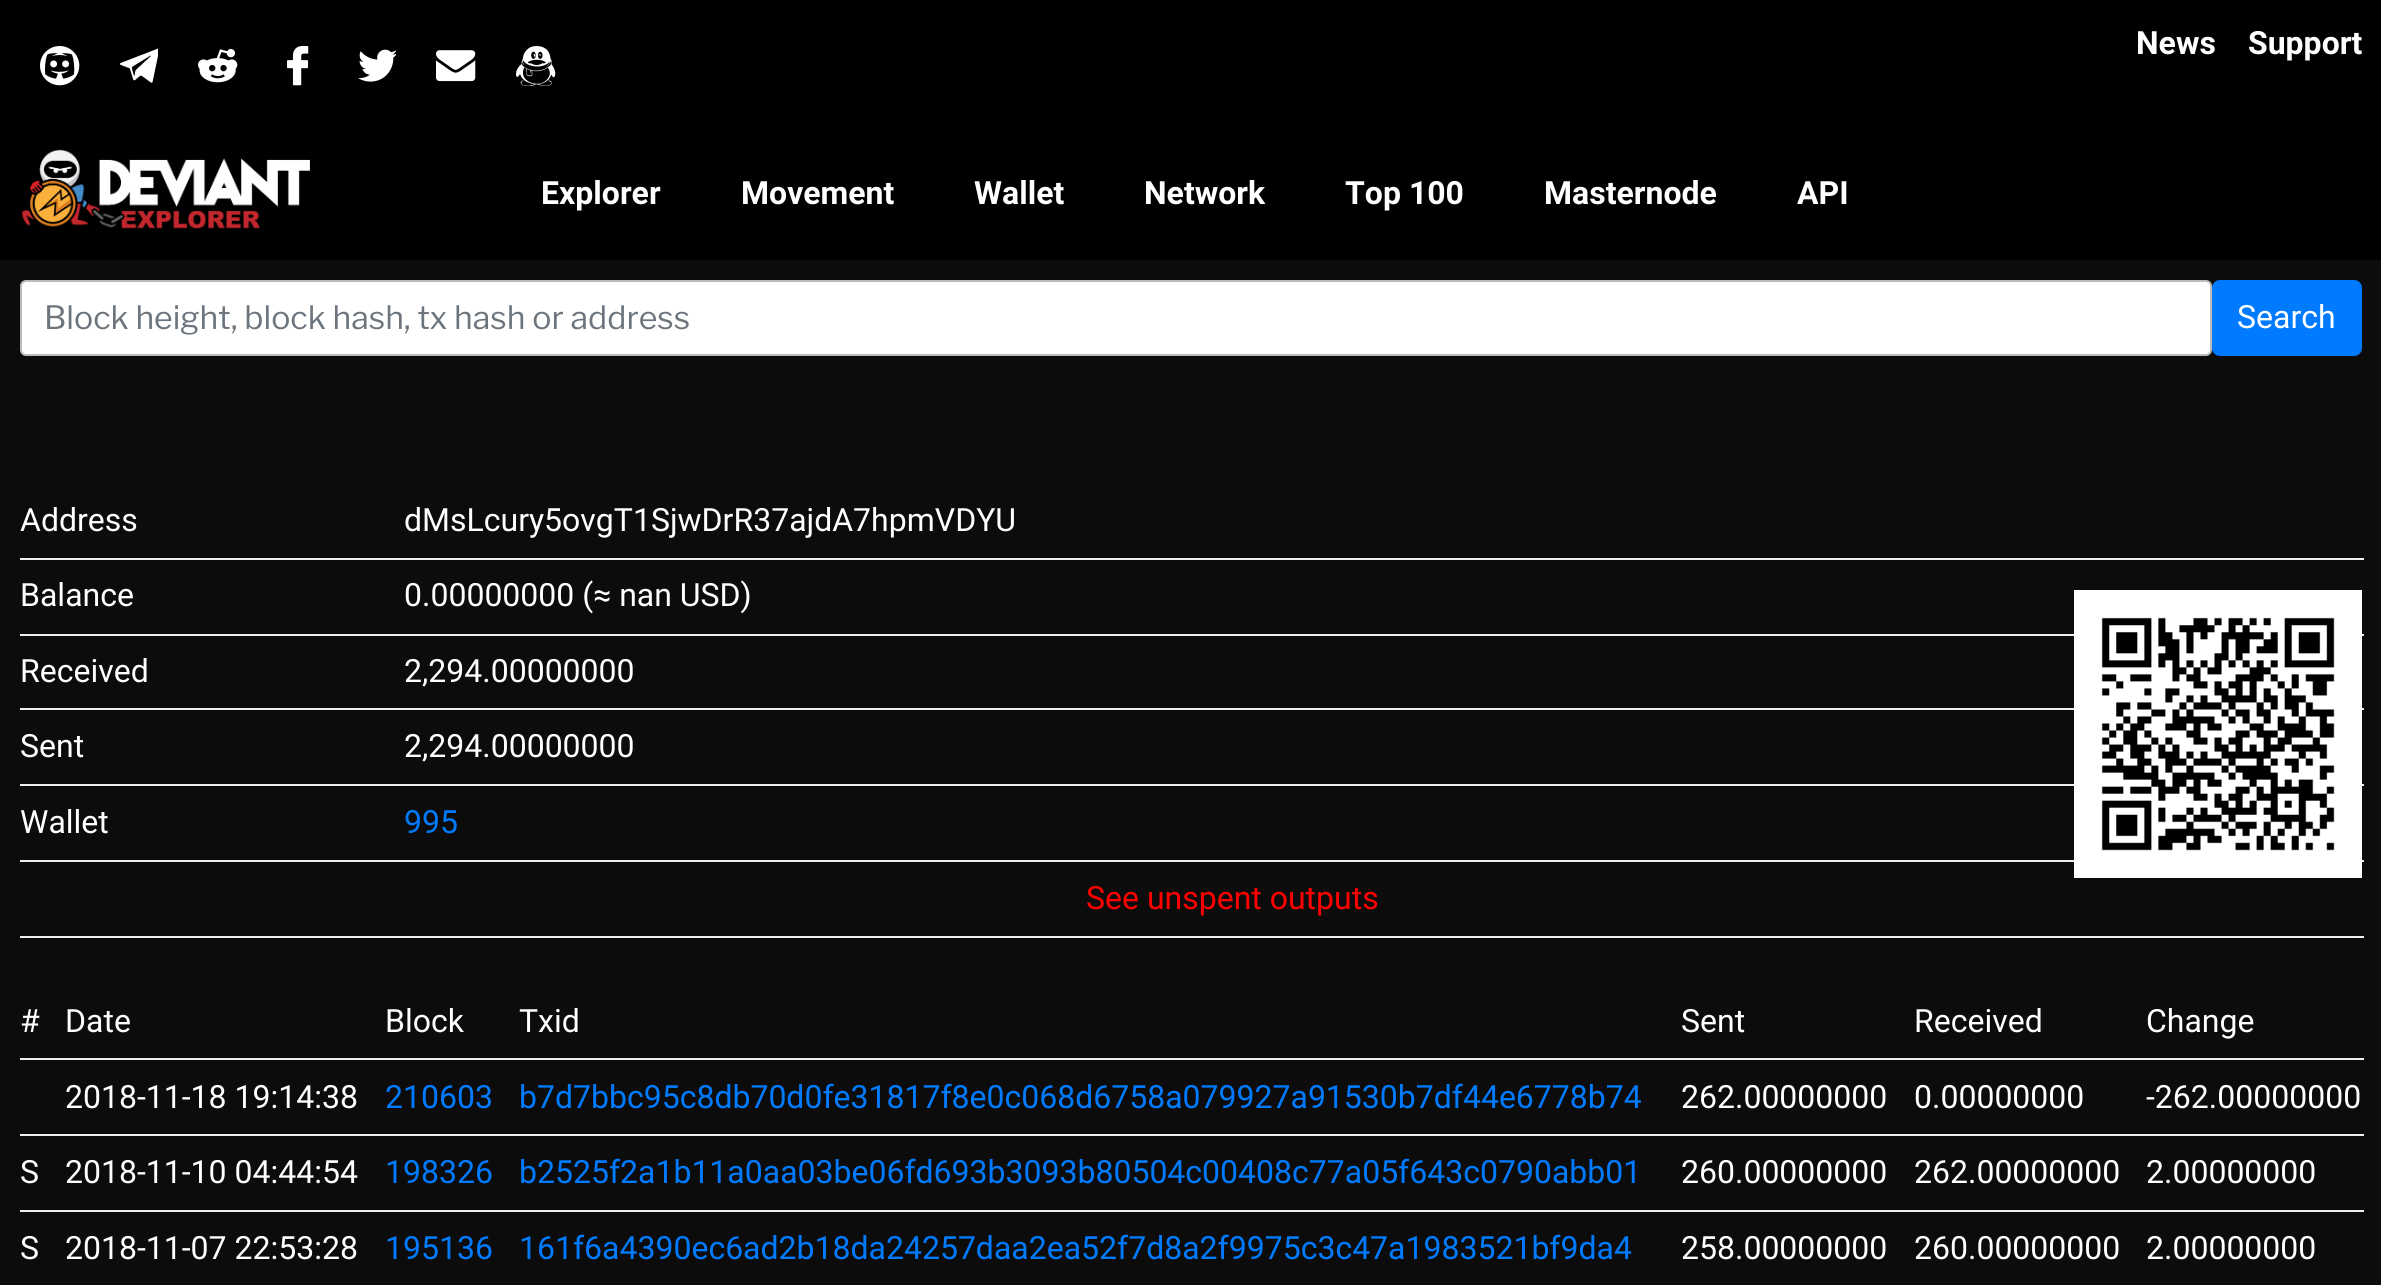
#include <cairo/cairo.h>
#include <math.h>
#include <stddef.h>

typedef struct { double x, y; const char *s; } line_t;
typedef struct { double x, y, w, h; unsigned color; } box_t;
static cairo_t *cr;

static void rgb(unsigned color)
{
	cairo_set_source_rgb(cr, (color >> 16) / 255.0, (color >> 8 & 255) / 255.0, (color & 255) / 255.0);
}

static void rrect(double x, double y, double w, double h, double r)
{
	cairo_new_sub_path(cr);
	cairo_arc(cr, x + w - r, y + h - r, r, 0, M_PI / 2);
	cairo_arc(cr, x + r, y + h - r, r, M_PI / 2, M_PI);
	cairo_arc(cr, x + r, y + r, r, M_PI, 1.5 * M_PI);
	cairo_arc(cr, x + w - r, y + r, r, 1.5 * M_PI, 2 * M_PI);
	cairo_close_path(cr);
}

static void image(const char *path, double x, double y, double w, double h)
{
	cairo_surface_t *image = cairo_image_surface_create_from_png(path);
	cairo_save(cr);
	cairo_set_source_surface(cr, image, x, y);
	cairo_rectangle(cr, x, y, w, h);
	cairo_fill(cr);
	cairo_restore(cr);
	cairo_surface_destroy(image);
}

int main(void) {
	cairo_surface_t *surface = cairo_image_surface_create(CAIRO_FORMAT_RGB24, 2381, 1285);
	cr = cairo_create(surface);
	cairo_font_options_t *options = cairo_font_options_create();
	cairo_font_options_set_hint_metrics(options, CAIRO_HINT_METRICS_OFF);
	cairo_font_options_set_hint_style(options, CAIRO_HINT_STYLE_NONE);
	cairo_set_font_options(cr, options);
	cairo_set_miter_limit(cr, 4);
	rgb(0x000000);
	cairo_paint(cr);
	image("img/1.png", 40, 46, 40, 40);
	image("img/2.png", 120, 48, 38, 35);
	image("img/3.png", 198, 49, 40, 34);
	image("img/4.png", 287, 46, 22, 40);
	image("img/5.png", 358, 49, 38, 33);
	image("img/6.png", 436, 50, 40, 32);
	image("img/7.png", 516, 46, 40, 40);
	image("img/8.png", 21, 149, 289, 80);
	rgb(0x0c0c0c);
	cairo_rectangle(cr, 0, 260, 2381, 1025);
	cairo_fill(cr);
	rgb(0xffffff);
	rrect(21, 281, 2190, 74, 5);
	cairo_fill_preserve(cr);
	rgb(0xbbbbbb);
	cairo_stroke(cr);
	rgb(0x007bff);
	rrect(2213, 281, 148, 74, 7);
	cairo_fill_preserve(cr);
	cairo_stroke(cr);
	{
		static const box_t items[] = {
			{20, 558, 2344, 2, 0xeeeeee},
			{20, 634, 2344, 2, 0xeeeeee},
			{20, 708, 2344, 2, 0xeeeeee},
			{20, 784, 2344, 2, 0xeeeeee},
			{20, 860, 2344, 2, 0xeeeeee},
		};
		for (size_t i = 0; i < sizeof items / sizeof *items; i++) {
			rgb(items[i].color);
			cairo_rectangle(cr, items[i].x, items[i].y, items[i].w, items[i].h);
			cairo_fill(cr);
		}
	}
	image("img/9.png", 2074, 590, 288, 288);
	{
		static const box_t items[] = {
			{20, 936, 2344, 2, 0xeeeeee},
			{20, 1058, 2344, 2, 0xeeeeee},
			{20, 1134, 2344, 2, 0xeeeeee},
			{20, 1210, 2344, 2, 0xeeeeee},
		};
		for (size_t i = 0; i < sizeof items / sizeof *items; i++) {
			rgb(items[i].color);
			cairo_rectangle(cr, items[i].x, items[i].y, items[i].w, items[i].h);
			cairo_fill(cr);
		}
	}
	cairo_select_font_face(cr, "Roboto", CAIRO_FONT_SLANT_NORMAL, CAIRO_FONT_WEIGHT_BOLD);
	cairo_set_font_size(cr, 32);
	rgb(0xffffff);
	{
		static const line_t items[] = {
			{2136, 54, "News"},
			{2248, 54, "Support"},
			{541, 204, "Explorer"},
			{741, 204, "Movement"},
			{974, 204, "Wallet"},
			{1144, 204, "Network"},
			{1345, 204, "Top 100"},
			{1544, 204, "Masternode"},
			{1797, 204, "API"},
		};
		for (size_t i = 0; i < sizeof items / sizeof *items; i++) {
			cairo_move_to(cr, items[i].x, items[i].y);
			cairo_show_text(cr, items[i].s);
		}
	}
	cairo_select_font_face(cr, "Libre Franklin", CAIRO_FONT_SLANT_NORMAL, CAIRO_FONT_WEIGHT_NORMAL);
	rgb(0x6c757d);
	cairo_move_to(cr, 44, 329);
	cairo_show_text(cr, "Block height, block hash, tx hash or address");
	cairo_select_font_face(cr, "Roboto", CAIRO_FONT_SLANT_NORMAL, CAIRO_FONT_WEIGHT_NORMAL);
	rgb(0xffffff);
	{
		static const line_t items[] = {
			{2237, 328, "Search"},
			{20, 531, "Address"},
			{404, 531, "dMsLcury5ovgT1SjwDrR37ajdA7hpmVDYU"},
			{20, 606, "Balance"},
			{404, 606, "0.00000000 (≈ nan USD)"},
			{20, 682, "Received"},
			{404, 682, "2,294.00000000"},
			{20, 757, "Sent"},
			{404, 757, "2,294.00000000"},
			{20, 833, "Wallet"},
		};
		for (size_t i = 0; i < sizeof items / sizeof *items; i++) {
			cairo_move_to(cr, items[i].x, items[i].y);
			cairo_show_text(cr, items[i].s);
		}
	}
	rgb(0x007bff);
	cairo_move_to(cr, 404, 833);
	cairo_show_text(cr, "995");
	rgb(0xff0000);
	cairo_move_to(cr, 1086, 909);
	cairo_show_text(cr, "See unspent outputs");
	rgb(0xffffff);
	{
		static const line_t items[] = {
			{20, 1032, "#"},
			{65, 1032, "Date"},
			{385, 1032, "Block"},
			{519, 1032, "Txid"},
			{1681, 1032, "Sent"},
			{1914, 1032, "Received"},
			{2146, 1032, "Change"},
			{65, 1108, "2018-11-18 19:14:38"},
		};
		for (size_t i = 0; i < sizeof items / sizeof *items; i++) {
			cairo_move_to(cr, items[i].x, items[i].y);
			cairo_show_text(cr, items[i].s);
		}
	}
	rgb(0x007bff);
	cairo_move_to(cr, 385, 1108);
	cairo_show_text(cr, "210603");
	cairo_move_to(cr, 519, 1108);
	cairo_show_text(cr, "b7d7bbc95c8db70d0fe31817f8e0c068d6758a079927a91530b7df44e6778b74");
	rgb(0xffffff);
	{
		static const line_t items[] = {
			{1681, 1108, "262.00000000"},
			{1914, 1108, "0.00000000"},
			{2146, 1108, "-262.00000000"},
			{20, 1183, "S"},
			{65, 1183, "2018-11-10 04:44:54"},
		};
		for (size_t i = 0; i < sizeof items / sizeof *items; i++) {
			cairo_move_to(cr, items[i].x, items[i].y);
			cairo_show_text(cr, items[i].s);
		}
	}
	rgb(0x007bff);
	cairo_move_to(cr, 385, 1183);
	cairo_show_text(cr, "198326");
	cairo_move_to(cr, 519, 1183);
	cairo_show_text(cr, "b2525f2a1b11a0aa03be06fd693b3093b80504c00408c77a05f643c0790abb01");
	rgb(0xffffff);
	{
		static const line_t items[] = {
			{1681, 1183, "260.00000000"},
			{1914, 1183, "262.00000000"},
			{2146, 1183, "2.00000000"},
			{20, 1259, "S"},
			{65, 1259, "2018-11-07 22:53:28"},
		};
		for (size_t i = 0; i < sizeof items / sizeof *items; i++) {
			cairo_move_to(cr, items[i].x, items[i].y);
			cairo_show_text(cr, items[i].s);
		}
	}
	rgb(0x007bff);
	cairo_move_to(cr, 385, 1259);
	cairo_show_text(cr, "195136");
	cairo_move_to(cr, 519, 1259);
	cairo_show_text(cr, "161f6a4390ec6ad2b18da24257daa2ea52f7d8a2f9975c3c47a1983521bf9da4");
	rgb(0xffffff);
	{
		static const line_t items[] = {
			{1681, 1259, "258.00000000"},
			{1914, 1259, "260.00000000"},
			{2146, 1259, "2.00000000"},
		};
		for (size_t i = 0; i < sizeof items / sizeof *items; i++) {
			cairo_move_to(cr, items[i].x, items[i].y);
			cairo_show_text(cr, items[i].s);
		}
	}
	cairo_surface_write_to_png(surface, "page.png");
	cairo_font_options_destroy(options);
	cairo_destroy(cr);
	cairo_surface_destroy(surface);
	return 0;
}
